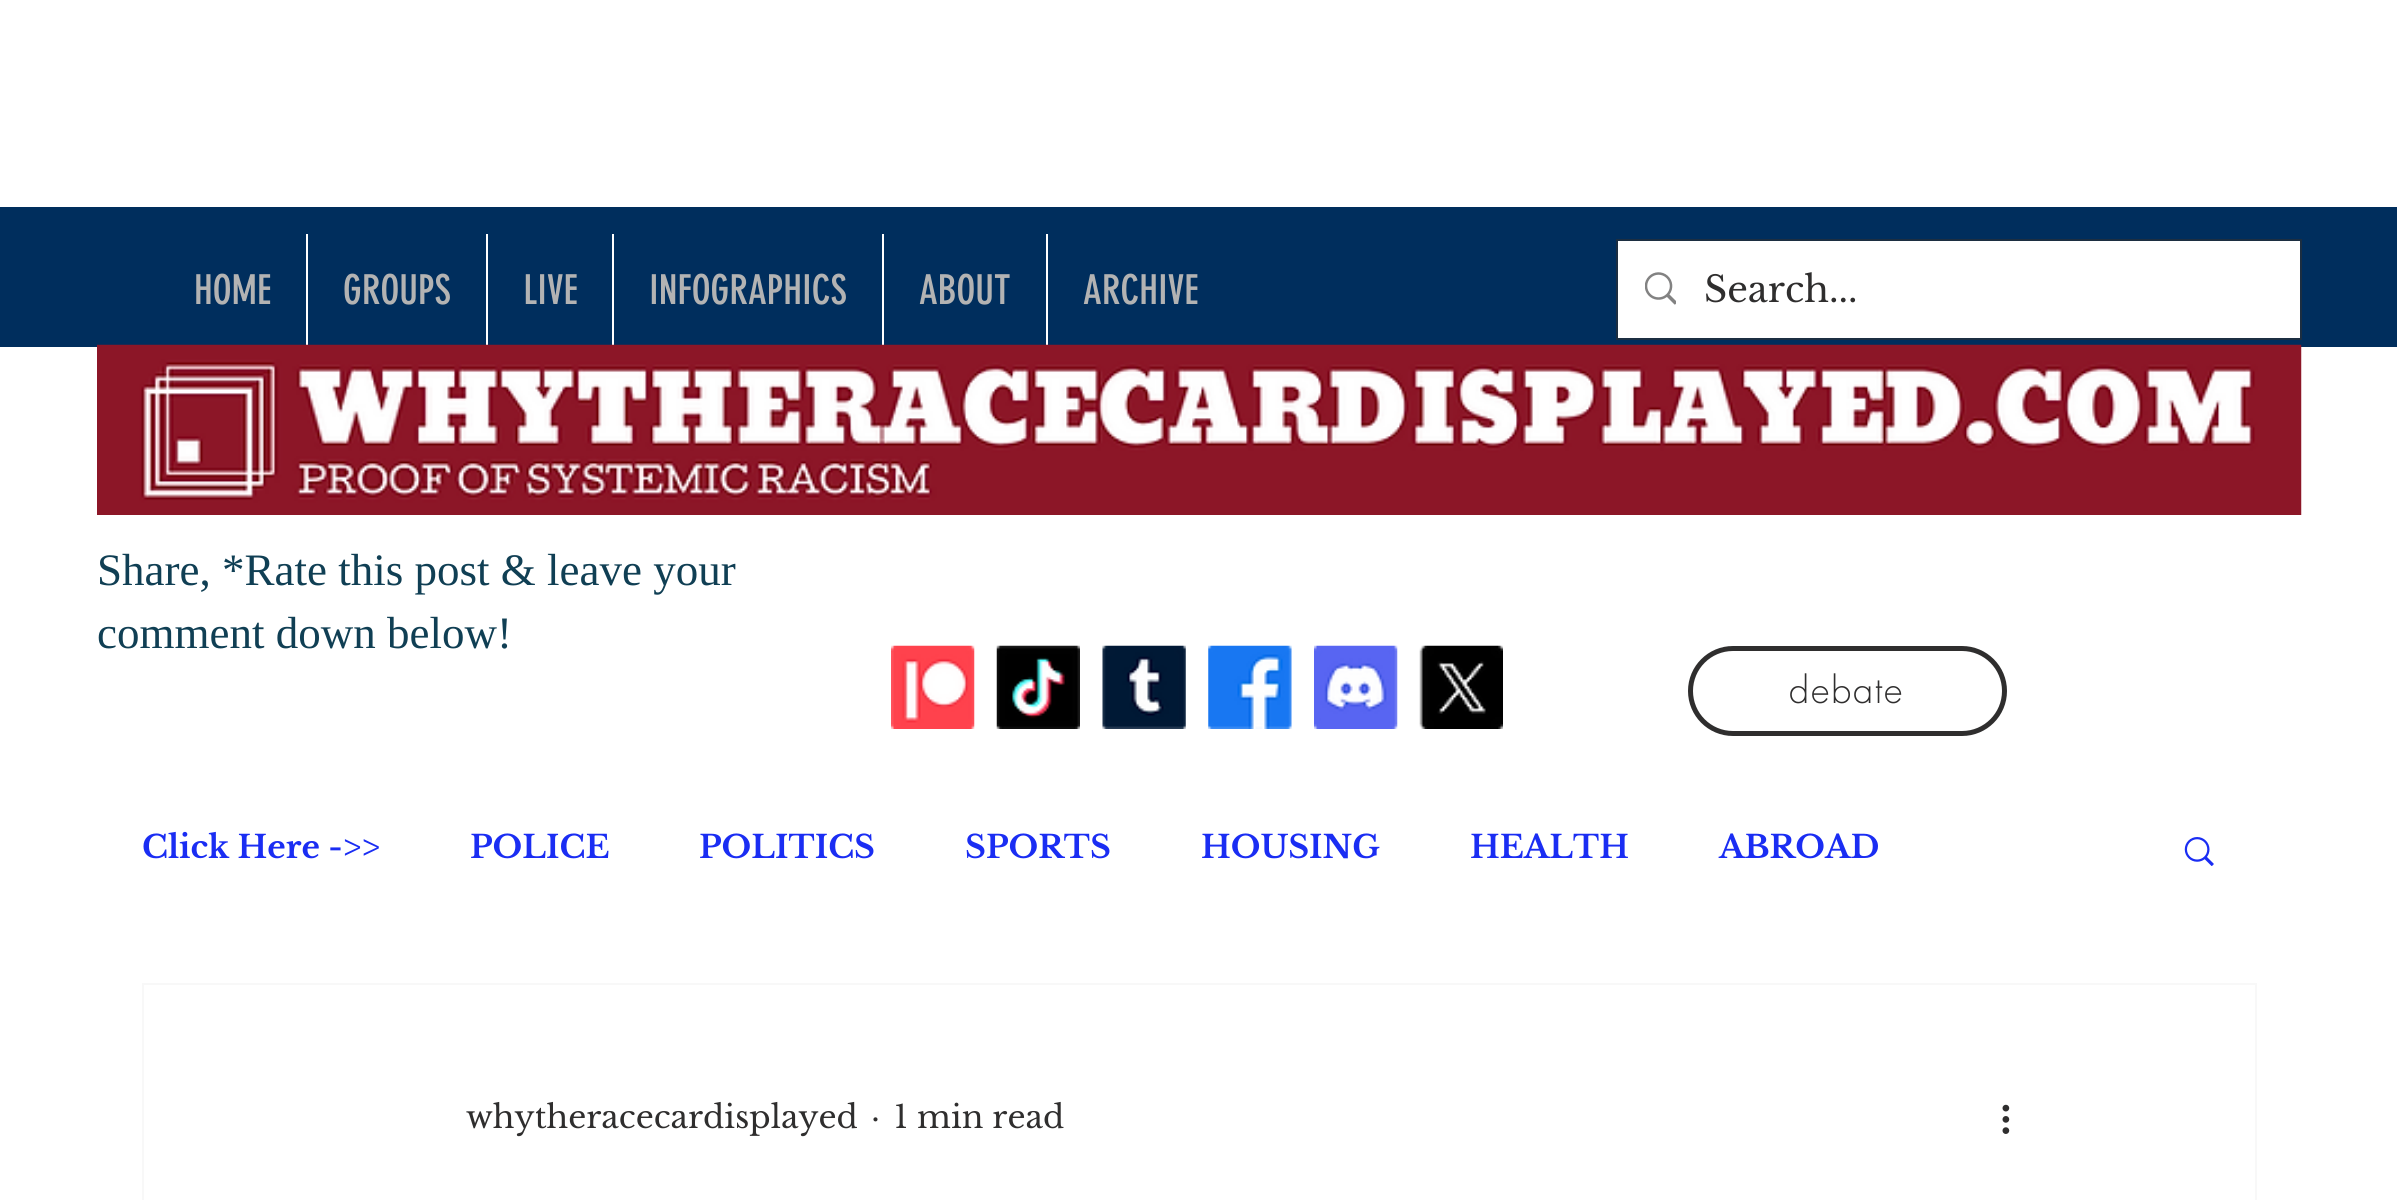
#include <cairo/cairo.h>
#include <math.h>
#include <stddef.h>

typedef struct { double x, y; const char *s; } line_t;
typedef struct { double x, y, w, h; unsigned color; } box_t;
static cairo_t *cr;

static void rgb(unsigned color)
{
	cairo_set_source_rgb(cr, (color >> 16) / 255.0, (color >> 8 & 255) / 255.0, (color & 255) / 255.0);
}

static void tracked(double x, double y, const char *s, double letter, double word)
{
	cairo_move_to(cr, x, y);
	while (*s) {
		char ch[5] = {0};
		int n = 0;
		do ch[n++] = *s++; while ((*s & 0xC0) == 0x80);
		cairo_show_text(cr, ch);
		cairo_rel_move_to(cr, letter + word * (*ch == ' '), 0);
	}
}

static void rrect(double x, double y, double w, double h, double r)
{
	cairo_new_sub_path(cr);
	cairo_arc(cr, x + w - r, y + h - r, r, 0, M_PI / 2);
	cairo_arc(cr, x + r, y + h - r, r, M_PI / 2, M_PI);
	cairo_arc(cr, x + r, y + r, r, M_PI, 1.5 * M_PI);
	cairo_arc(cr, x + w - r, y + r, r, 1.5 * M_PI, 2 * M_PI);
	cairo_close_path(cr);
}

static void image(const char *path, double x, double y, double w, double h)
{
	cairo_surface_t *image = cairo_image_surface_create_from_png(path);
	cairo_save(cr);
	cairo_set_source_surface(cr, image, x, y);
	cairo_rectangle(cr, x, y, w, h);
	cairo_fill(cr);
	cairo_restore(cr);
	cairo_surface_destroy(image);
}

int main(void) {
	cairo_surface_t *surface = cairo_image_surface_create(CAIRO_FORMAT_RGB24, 2397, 1200);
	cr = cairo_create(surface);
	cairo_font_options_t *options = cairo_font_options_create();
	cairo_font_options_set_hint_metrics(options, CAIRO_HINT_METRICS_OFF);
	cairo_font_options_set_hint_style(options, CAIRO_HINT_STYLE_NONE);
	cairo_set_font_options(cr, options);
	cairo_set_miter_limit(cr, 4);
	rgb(0xffffff);
	cairo_paint(cr);
	{
		static const box_t items[] = {
			{0, 207, 2397, 140, 0x002e5d},
			{306, 234, 2, 113, 0xffffff},
			{486, 234, 2, 113, 0xffffff},
			{612, 234, 2, 113, 0xffffff},
			{882, 234, 2, 113, 0xffffff},
			{1046, 234, 2, 113, 0xffffff},
		};
		for (size_t i = 0; i < sizeof items / sizeof *items; i++) {
			rgb(items[i].color);
			cairo_rectangle(cr, items[i].x, items[i].y, items[i].w, items[i].h);
			cairo_fill(cr);
		}
	}
	cairo_rectangle(cr, 1617, 240, 684, 99);
	rgb(0x1c2e41);
	cairo_stroke(cr);
	rgb(0xffffff);
	cairo_rectangle(cr, 1618, 241, 682, 97);
	cairo_fill(cr);
	image("img/1.png", 1645, 272, 31, 33);
	image("img/2.png", 97, 344, 2205, 171);
	image("img/3.png", 891, 645, 84, 84);
	image("img/4.png", 996, 645, 84, 84);
	image("img/5.png", 1102, 645, 84, 84);
	image("img/6.png", 1208, 645, 84, 84);
	image("img/7.png", 1314, 645, 84, 84);
	image("img/8.png", 1419, 645, 84, 84);
	rrect(1690.5, 648.5, 314, 85, 42.5);
	rgb(0x2f2e2e);
	cairo_set_line_width(cr, 5);
	cairo_stroke(cr);
	image("img/9.png", 2184, 837, 30, 29);
	cairo_rectangle(cr, 143, 984, 2113, 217);
	rgb(0xf8f8f8);
	cairo_set_line_width(cr, 2);
	cairo_stroke(cr);
	image("img/10.png", 2002, 1104, 8, 30);
	cairo_select_font_face(cr, "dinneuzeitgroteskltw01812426", CAIRO_FONT_SLANT_NORMAL, CAIRO_FONT_WEIGHT_NORMAL);
	cairo_set_font_size(cr, 40.5);
	rgb(0xb3b3b3);
	{
		static const line_t items[] = {
			{194, 304, "HOME"},
			{343, 304, "GROUPS"},
			{523, 304, "LIVE"},
			{649, 304, "INFOGRAPHICS"},
			{919, 304, "ABOUT"},
			{1083, 304, "ARCHIVE"},
		};
		for (size_t i = 0; i < sizeof items / sizeof *items; i++) {
			cairo_move_to(cr, items[i].x, items[i].y);
			cairo_show_text(cr, items[i].s);
		}
	}
	cairo_select_font_face(cr, "Libre Baskerville", CAIRO_FONT_SLANT_NORMAL, CAIRO_FONT_WEIGHT_NORMAL);
	cairo_set_font_size(cr, 36);
	rgb(0x2f2e2e);
	cairo_move_to(cr, 1704, 302);
	cairo_show_text(cr, "Search...");
	cairo_select_font_face(cr, "Liberation Serif", CAIRO_FONT_SLANT_NORMAL, CAIRO_FONT_WEIGHT_NORMAL);
	cairo_set_font_size(cr, 45);
	rgb(0x103f54);
	cairo_move_to(cr, 97, 585);
	cairo_show_text(cr, "Share, *Rate this post & leave your");
	cairo_move_to(cr, 97, 648);
	cairo_show_text(cr, "comment down below!");
	cairo_select_font_face(cr, "futura Light", CAIRO_FONT_SLANT_NORMAL, CAIRO_FONT_WEIGHT_NORMAL);
	cairo_set_font_size(cr, 36);
	rgb(0x2f2e2e);
	tracked(1789, 703, "debate", 1.75, 0);
	cairo_select_font_face(cr, "Libre Baskerville", CAIRO_FONT_SLANT_NORMAL, CAIRO_FONT_WEIGHT_BOLD);
	cairo_set_font_size(cr, 31.5);
	rgb(0x1a2df3);
	{
		static const line_t items[] = {
			{142, 858, "Click Here ->>"},
			{470, 858, "POLICE"},
			{699, 858, "POLITICS"},
			{965, 858, "SPORTS"},
			{1201, 858, "HOUSING"},
			{1470, 858, "HEALTH"},
			{1719, 858, "ABROAD"},
		};
		for (size_t i = 0; i < sizeof items / sizeof *items; i++) {
			cairo_move_to(cr, items[i].x, items[i].y);
			cairo_show_text(cr, items[i].s);
		}
	}
	cairo_select_font_face(cr, "Libre Baskerville", CAIRO_FONT_SLANT_NORMAL, CAIRO_FONT_WEIGHT_NORMAL);
	rgb(0x2f2e2e);
	{
		static const line_t items[] = {
			{466, 1128, "whytheracecardisplayed"},
			{871, 1128, "·"},
			{894, 1128, "1 min read"},
		};
		for (size_t i = 0; i < sizeof items / sizeof *items; i++) {
			cairo_move_to(cr, items[i].x, items[i].y);
			cairo_show_text(cr, items[i].s);
		}
	}
	cairo_surface_write_to_png(surface, "page.png");
	cairo_font_options_destroy(options);
	cairo_destroy(cr);
	cairo_surface_destroy(surface);
	return 0;
}
